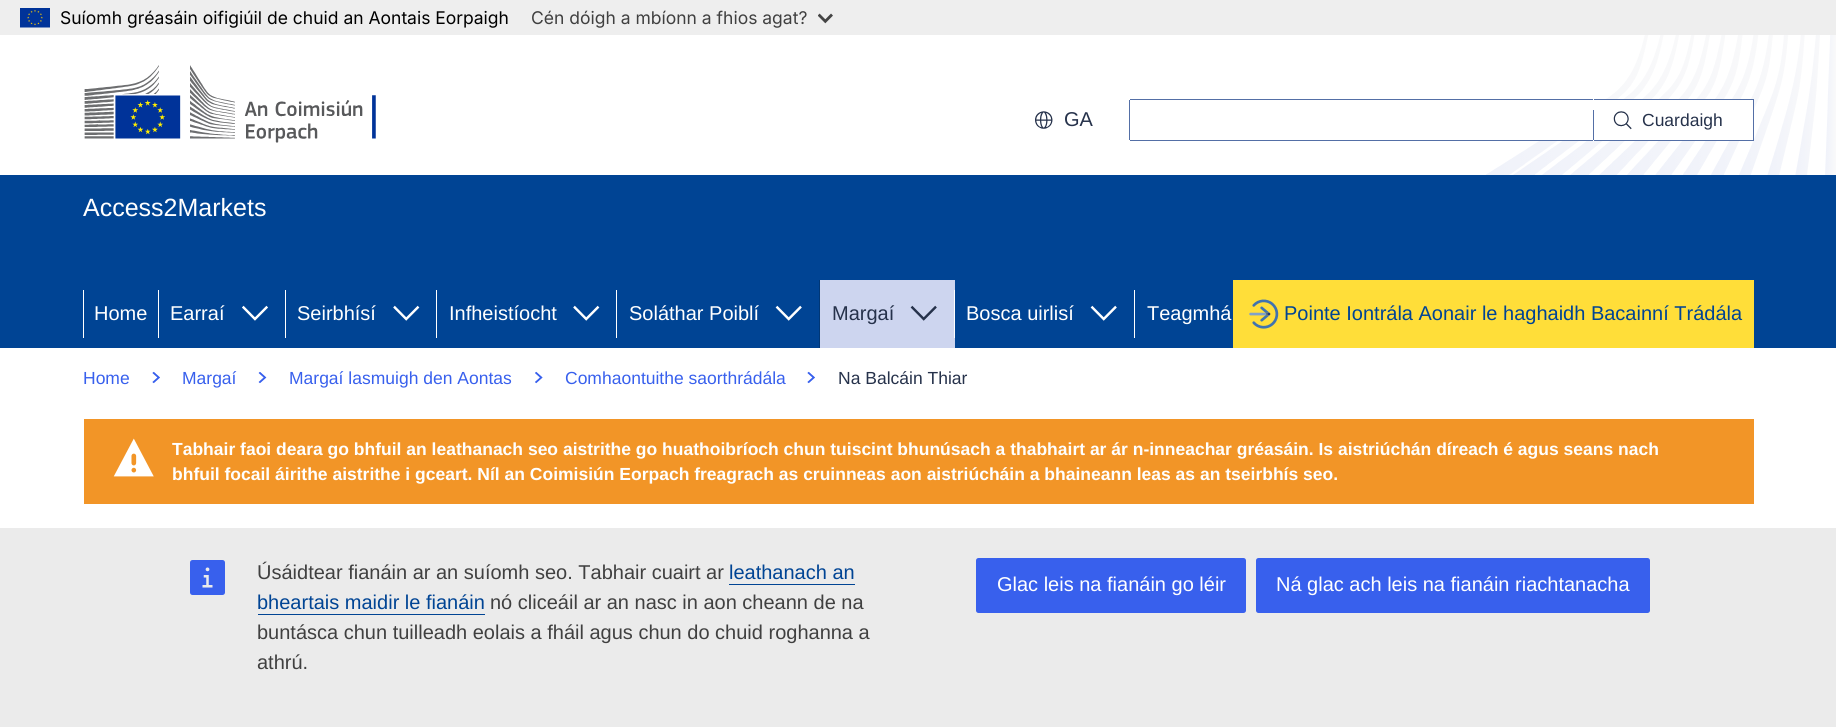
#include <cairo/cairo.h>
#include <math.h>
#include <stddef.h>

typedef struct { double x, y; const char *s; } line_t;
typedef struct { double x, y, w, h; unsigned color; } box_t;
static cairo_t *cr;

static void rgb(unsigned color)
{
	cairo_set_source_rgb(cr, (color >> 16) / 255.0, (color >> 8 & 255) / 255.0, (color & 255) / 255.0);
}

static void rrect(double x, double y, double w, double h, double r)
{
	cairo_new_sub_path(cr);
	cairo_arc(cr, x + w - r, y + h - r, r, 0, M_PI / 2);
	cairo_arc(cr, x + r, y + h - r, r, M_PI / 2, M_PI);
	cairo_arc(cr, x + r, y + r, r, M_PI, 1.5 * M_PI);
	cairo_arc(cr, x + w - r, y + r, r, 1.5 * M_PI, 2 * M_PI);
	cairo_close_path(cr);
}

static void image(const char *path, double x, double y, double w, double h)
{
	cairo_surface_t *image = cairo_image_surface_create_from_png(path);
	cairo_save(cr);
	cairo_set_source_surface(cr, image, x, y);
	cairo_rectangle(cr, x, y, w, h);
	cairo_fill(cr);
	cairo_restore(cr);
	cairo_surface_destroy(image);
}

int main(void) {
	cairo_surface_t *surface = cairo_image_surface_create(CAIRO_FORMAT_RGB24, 1836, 727);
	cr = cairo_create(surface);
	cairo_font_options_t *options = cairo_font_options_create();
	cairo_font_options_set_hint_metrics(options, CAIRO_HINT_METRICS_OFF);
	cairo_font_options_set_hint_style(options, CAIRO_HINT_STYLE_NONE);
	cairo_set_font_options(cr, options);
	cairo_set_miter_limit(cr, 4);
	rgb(0xffffff);
	cairo_paint(cr);
	rgb(0xeeeeee);
	cairo_rectangle(cr, 0, 0, 1836, 35);
	cairo_fill(cr);
	image("img/1.png", 20, 8, 30, 20);
	image("img/2.png", 818, 13, 15, 11);
	image("img/3.png", 1486, 35, 350, 140);
	image("img/4.png", 84, 65, 292, 78);
	image("img/5.png", 1035, 111, 18, 18);
	{
		static const box_t items[] = {
			{1540, 99, 213, 42, 0xffffff},
			{1130, 99, 463, 1, 0x546fa6},
			{1130, 140, 463, 1, 0x546fa6},
			{1129, 100, 1, 40, 0x546fa6},
			{1594, 99, 160, 1, 0x546fa6},
			{1753, 99, 1, 42, 0x546fa6},
			{1594, 140, 160, 1, 0x546fa6},
			{1593, 110, 1, 30, 0x546fa6},
		};
		for (size_t i = 0; i < sizeof items / sizeof *items; i++) {
			rgb(items[i].color);
			cairo_rectangle(cr, items[i].x, items[i].y, items[i].w, items[i].h);
			cairo_fill(cr);
		}
	}
	image("img/6.png", 1613, 111, 19, 19);
	{
		static const box_t items[] = {
			{0, 175, 1836, 173, 0x004494},
			{83, 290, 1, 48, 0xffffff},
			{158, 290, 1, 48, 0xffffff},
		};
		for (size_t i = 0; i < sizeof items / sizeof *items; i++) {
			rgb(items[i].color);
			cairo_rectangle(cr, items[i].x, items[i].y, items[i].w, items[i].h);
			cairo_fill(cr);
		}
	}
	image("img/7.png", 242, 305, 26, 16);
	cairo_rectangle(cr, 285, 290, 1, 48);
	cairo_fill(cr);
	image("img/8.png", 393, 305, 27, 16);
	cairo_rectangle(cr, 436, 290, 1, 48);
	cairo_fill(cr);
	image("img/8.png", 573, 305, 27, 16);
	cairo_rectangle(cr, 616, 290, 1, 48);
	cairo_fill(cr);
	image("img/9.png", 775, 305, 27, 16);
	rgb(0x003776);
	cairo_rectangle(cr, 819, 280, 1, 68);
	cairo_fill(cr);
	rgb(0xcdd5ef);
	cairo_rectangle(cr, 820, 280, 135, 68);
	cairo_fill(cr);
	image("img/10.png", 910, 305, 27, 16);
	rgb(0xffffff);
	cairo_rectangle(cr, 954, 290, 1, 48);
	cairo_fill(cr);
	image("img/9.png", 1090, 305, 27, 16);
	cairo_rectangle(cr, 1134, 290, 1, 48);
	cairo_fill(cr);
	rgb(0xffde39);
	cairo_rectangle(cr, 1233, 280, 521, 68);
	cairo_fill(cr);
	image("img/11.png", 1249, 299, 30, 30);
	image("img/12.png", 152, 371, 8, 13);
	image("img/13.png", 258, 371, 9, 13);
	image("img/14.png", 535, 371, 8, 13);
	image("img/12.png", 807, 371, 8, 13);
	rgb(0xf29527);
	cairo_rectangle(cr, 84, 419, 1670, 85);
	cairo_fill(cr);
	image("img/15.png", 113, 438, 41, 39);
	rgb(0xebebeb);
	cairo_rectangle(cr, 0, 528, 1836, 199);
	cairo_fill(cr);
	image("img/16.png", 190, 560, 35, 35);
	rgb(0x004494);
	cairo_rectangle(cr, 729, 584, 126, 1);
	cairo_fill(cr);
	cairo_rectangle(cr, 258, 614, 227, 1);
	cairo_fill(cr);
	rgb(0x3860ed);
	rrect(976, 558, 270, 55, 2.5);
	cairo_fill(cr);
	rrect(1256, 558, 394, 55, 2.5);
	cairo_fill(cr);
	cairo_select_font_face(cr, "Inter", CAIRO_FONT_SLANT_NORMAL, CAIRO_FONT_WEIGHT_NORMAL);
	cairo_set_font_size(cr, 17.5);
	rgb(0x000000);
	cairo_move_to(cr, 60, 24);
	cairo_show_text(cr, "Suíomh gréasáin oifigiúil de chuid an Aontais Eorpaigh");
	rgb(0x404040);
	cairo_move_to(cr, 531, 24);
	cairo_show_text(cr, "Cén dóigh a mbíonn a fhios agat?");
	cairo_select_font_face(cr, "Liberation Sans", CAIRO_FONT_SLANT_NORMAL, CAIRO_FONT_WEIGHT_NORMAL);
	cairo_set_font_size(cr, 20);
	rgb(0x26324b);
	cairo_move_to(cr, 1064, 126);
	cairo_show_text(cr, "GA");
	cairo_set_font_size(cr, 17.5);
	cairo_move_to(cr, 1642, 126);
	cairo_show_text(cr, "Cuardaigh");
	cairo_set_font_size(cr, 25);
	rgb(0xffffff);
	cairo_move_to(cr, 83, 216);
	cairo_show_text(cr, "Access2Markets");
	cairo_set_font_size(cr, 20);
	{
		static const line_t items[] = {
			{94, 320, "Home"},
			{170, 320, "Earraí"},
			{297, 320, "Seirbhísí"},
			{449, 320, "Infheistíocht"},
			{629, 320, "Soláthar Poiblí"},
		};
		for (size_t i = 0; i < sizeof items / sizeof *items; i++) {
			cairo_move_to(cr, items[i].x, items[i].y);
			cairo_show_text(cr, items[i].s);
		}
	}
	rgb(0x26324b);
	cairo_move_to(cr, 832, 320);
	cairo_show_text(cr, "Margaí");
	rgb(0xffffff);
	cairo_move_to(cr, 966, 320);
	cairo_show_text(cr, "Bosca uirlisí");
	cairo_move_to(cr, 1147, 320);
	cairo_show_text(cr, "Teagmhá");
	rgb(0x004494);
	cairo_move_to(cr, 1284, 320);
	cairo_show_text(cr, "Pointe Iontrála Aonair le haghaidh Bacainní Trádála");
	cairo_set_font_size(cr, 17.5);
	rgb(0x3860ed);
	{
		static const line_t items[] = {
			{83, 384, "Home"},
			{182, 384, "Margaí"},
			{289, 384, "Margaí lasmuigh den Aontas"},
			{565, 384, "Comhaontuithe saorthrádála"},
		};
		for (size_t i = 0; i < sizeof items / sizeof *items; i++) {
			cairo_move_to(cr, items[i].x, items[i].y);
			cairo_show_text(cr, items[i].s);
		}
	}
	rgb(0x26324b);
	cairo_move_to(cr, 838, 384);
	cairo_show_text(cr, "Na Balcáin Thiar");
	cairo_select_font_face(cr, "Liberation Sans", CAIRO_FONT_SLANT_NORMAL, CAIRO_FONT_WEIGHT_BOLD);
	rgb(0xffffff);
	cairo_move_to(cr, 172, 455);
	cairo_show_text(cr, "Tabhair faoi deara go bhfuil an leathanach seo aistrithe go huathoibríoch chun tuiscint bhunúsach a thabhairt ar ár n-inneachar gréasáin. Is aistriúchán díreach é agus seans nach");
	cairo_move_to(cr, 172, 480);
	cairo_show_text(cr, "bhfuil focail áirithe aistrithe i gceart. Níl an Coimisiún Eorpach freagrach as cruinneas aon aistriúcháin a bhaineann leas as an tseirbhís seo.");
	cairo_select_font_face(cr, "Liberation Sans", CAIRO_FONT_SLANT_NORMAL, CAIRO_FONT_WEIGHT_NORMAL);
	cairo_set_font_size(cr, 20);
	rgb(0x404040);
	cairo_move_to(cr, 257, 579);
	cairo_show_text(cr, "Úsáidtear fianáin ar an suíomh seo. Tabhair cuairt ar");
	rgb(0x004494);
	cairo_move_to(cr, 729, 579);
	cairo_show_text(cr, "leathanach an");
	cairo_move_to(cr, 257, 609);
	cairo_show_text(cr, "bheartais maidir le fianáin");
	rgb(0x404040);
	{
		static const line_t items[] = {
			{490, 609, "nó cliceáil ar an nasc in aon cheann de na"},
			{257, 639, "buntásca chun tuilleadh eolais a fháil agus chun do chuid roghanna a"},
			{257, 669, "athrú."},
		};
		for (size_t i = 0; i < sizeof items / sizeof *items; i++) {
			cairo_move_to(cr, items[i].x, items[i].y);
			cairo_show_text(cr, items[i].s);
		}
	}
	rgb(0xffffff);
	cairo_move_to(cr, 997, 591);
	cairo_show_text(cr, "Glac leis na fianáin go léir");
	cairo_move_to(cr, 1276, 591);
	cairo_show_text(cr, "Ná glac ach leis na fianáin riachtanacha");
	cairo_surface_write_to_png(surface, "page.png");
	cairo_font_options_destroy(options);
	cairo_destroy(cr);
	cairo_surface_destroy(surface);
	return 0;
}
